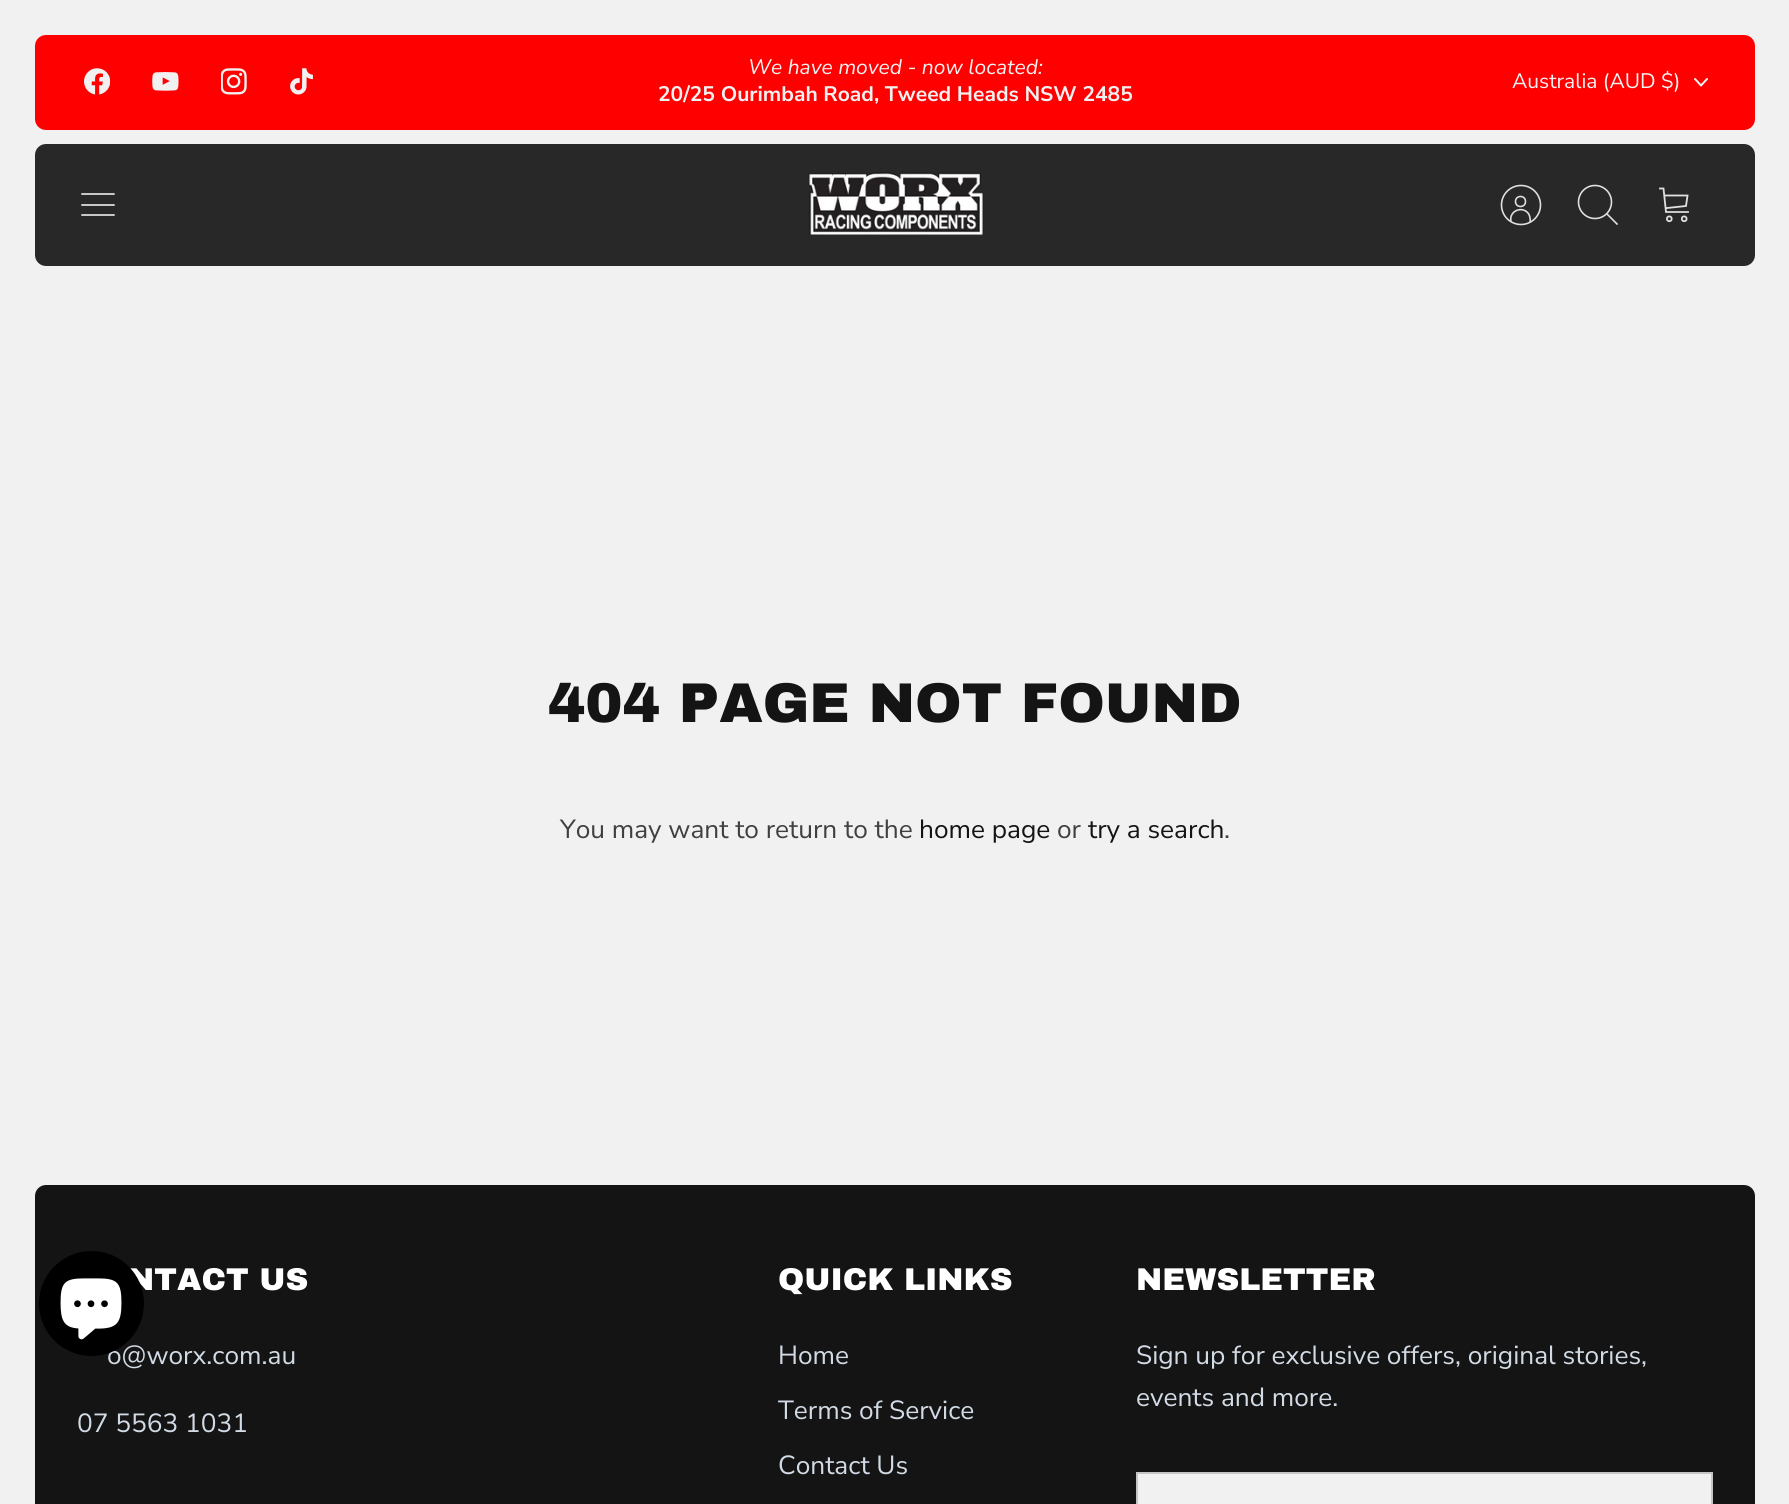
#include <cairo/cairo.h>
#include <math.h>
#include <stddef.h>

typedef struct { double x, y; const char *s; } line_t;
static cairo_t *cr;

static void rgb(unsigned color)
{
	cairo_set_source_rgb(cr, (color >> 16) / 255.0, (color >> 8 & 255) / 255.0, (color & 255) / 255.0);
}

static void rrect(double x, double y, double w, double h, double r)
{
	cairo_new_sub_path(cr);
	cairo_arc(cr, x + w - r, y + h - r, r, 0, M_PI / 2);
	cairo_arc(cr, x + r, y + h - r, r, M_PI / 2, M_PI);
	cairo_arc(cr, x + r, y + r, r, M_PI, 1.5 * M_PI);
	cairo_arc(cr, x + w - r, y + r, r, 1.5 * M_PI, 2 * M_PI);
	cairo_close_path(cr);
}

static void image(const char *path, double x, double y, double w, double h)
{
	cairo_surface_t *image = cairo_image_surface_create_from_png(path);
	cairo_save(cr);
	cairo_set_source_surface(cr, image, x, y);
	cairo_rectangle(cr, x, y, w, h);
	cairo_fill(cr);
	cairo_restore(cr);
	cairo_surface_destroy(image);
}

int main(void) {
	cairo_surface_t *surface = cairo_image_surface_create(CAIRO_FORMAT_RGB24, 1789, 1504);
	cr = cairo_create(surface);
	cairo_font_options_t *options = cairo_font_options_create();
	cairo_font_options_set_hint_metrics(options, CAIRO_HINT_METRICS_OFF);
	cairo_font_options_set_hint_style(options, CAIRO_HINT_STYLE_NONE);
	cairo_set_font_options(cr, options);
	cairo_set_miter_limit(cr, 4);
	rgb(0xf1f1f1);
	cairo_paint(cr);
	rgb(0xff0000);
	rrect(35, 35, 1720, 95, 11);
	cairo_fill(cr);
	image("img/1.png", 84, 68, 26, 27);
	image("img/2.png", 152, 72, 27, 19);
	image("img/3.png", 221, 68, 26, 27);
	image("img/4.png", 290, 68, 23, 27);
	cairo_new_path(cr);
	cairo_move_to(cr, 1695, 79);
	cairo_line_to(cr, 1701, 85.5);
	cairo_line_to(cr, 1707, 79);
	rgb(0xf1f1f1);
	cairo_set_line_cap(cr, CAIRO_LINE_CAP_ROUND);
	cairo_set_line_join(cr, CAIRO_LINE_JOIN_ROUND);
	cairo_stroke(cr);
	rgb(0x282828);
	rrect(35, 144, 1720, 122, 11);
	cairo_fill(cr);
	cairo_new_path(cr);
	cairo_move_to(cr, 82, 205);
	cairo_line_to(cr, 114, 205);
	cairo_move_to(cr, 82, 194);
	cairo_line_to(cr, 114, 194);
	cairo_move_to(cr, 82, 215);
	cairo_line_to(cr, 114, 215);
	rgb(0xe0e0e0);
	cairo_set_line_width(cr, 1.8);
	cairo_stroke(cr);
	image("img/5.png", 808, 172, 176, 64);
	cairo_new_path(cr);
	cairo_move_to(cr, 1530, 222);
	cairo_curve_to(cr, 1530.5, 219.5, 1530, 217, 1529, 214.5);
	cairo_curve_to(cr, 1523.5, 205, 1508.5, 210.5, 1511, 221.5);
	cairo_set_line_width(cr, 1.6);
	cairo_set_line_cap(cr, CAIRO_LINE_CAP_BUTT);
	cairo_set_line_join(cr, CAIRO_LINE_JOIN_MITER);
	cairo_stroke(cr);
	cairo_arc(cr, 1520.5, 201.5, 5, 0, 2 * M_PI);
	cairo_stroke(cr);
	cairo_arc(cr, 1521, 205, 19.5, 0, 2 * M_PI);
	cairo_stroke(cr);
	cairo_arc(cr, 1595, 202, 16.5, 0, 2 * M_PI);
	cairo_stroke(cr);
	cairo_new_path(cr);
	cairo_move_to(cr, 1607.5, 214.5);
	cairo_line_to(cr, 1617, 224);
	cairo_set_line_cap(cr, CAIRO_LINE_CAP_SQUARE);
	cairo_stroke(cr);
	cairo_new_path(cr);
	cairo_move_to(cr, 1660, 188.5);
	cairo_line_to(cr, 1663.5, 188.5);
	cairo_line_to(cr, 1666, 212);
	cairo_line_to(cr, 1688, 212);
	cairo_move_to(cr, 1664.5, 195.5);
	cairo_line_to(cr, 1687.5, 195.5);
	cairo_line_to(cr, 1686, 206);
	cairo_line_to(cr, 1667, 208);
	cairo_set_line_width(cr, 1.8);
	cairo_stroke(cr);
	cairo_arc(cr, 1669.3, 218.8, 2.4, 0, 2 * M_PI);
	cairo_set_line_cap(cr, CAIRO_LINE_CAP_BUTT);
	cairo_stroke(cr);
	cairo_arc(cr, 1684.2, 218.8, 2.4, 0, 2 * M_PI);
	cairo_stroke(cr);
	rgb(0x141414);
	rrect(35, 1185, 1720, 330, 11);
	cairo_fill(cr);
	rgb(0xf1f1f1);
	cairo_rectangle(cr, 1137, 1473, 575, 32);
	cairo_fill_preserve(cr);
	rgb(0xc5c5c5);
	cairo_set_line_width(cr, 2);
	cairo_stroke(cr);
	cairo_select_font_face(cr, "Nunito Sans", CAIRO_FONT_SLANT_ITALIC, CAIRO_FONT_WEIGHT_NORMAL);
	cairo_set_font_size(cr, 21);
	rgb(0xf1f1f1);
	cairo_move_to(cr, 748, 74);
	cairo_show_text(cr, "We have moved - now located:");
	cairo_select_font_face(cr, "Nunito Sans", CAIRO_FONT_SLANT_NORMAL, CAIRO_FONT_WEIGHT_BOLD);
	cairo_move_to(cr, 658, 101);
	cairo_show_text(cr, "20/25 Ourimbah Road, Tweed Heads NSW 2485");
	cairo_select_font_face(cr, "Nunito Sans", CAIRO_FONT_SLANT_NORMAL, CAIRO_FONT_WEIGHT_NORMAL);
	cairo_move_to(cr, 1512, 88);
	cairo_show_text(cr, "Australia (AUD $)");
	cairo_select_font_face(cr, "Archivo Black", CAIRO_FONT_SLANT_NORMAL, CAIRO_FONT_WEIGHT_NORMAL);
	cairo_set_font_size(cr, 56);
	rgb(0x141414);
	cairo_move_to(cr, 548, 722);
	cairo_show_text(cr, "404 PAGE NOT FOUND");
	cairo_select_font_face(cr, "Nunito Sans", CAIRO_FONT_SLANT_NORMAL, CAIRO_FONT_WEIGHT_NORMAL);
	cairo_set_font_size(cr, 26.25);
	rgb(0x404040);
	cairo_move_to(cr, 560, 838);
	cairo_show_text(cr, "You may want to return to the");
	rgb(0x141414);
	cairo_move_to(cr, 919, 838);
	cairo_show_text(cr, "home page");
	rgb(0x404040);
	cairo_move_to(cr, 1057, 838);
	cairo_show_text(cr, "or");
	rgb(0x141414);
	cairo_move_to(cr, 1088, 838);
	cairo_show_text(cr, "try a search");
	rgb(0x404040);
	cairo_move_to(cr, 1224, 838);
	cairo_show_text(cr, ".");
	cairo_select_font_face(cr, "Archivo Black", CAIRO_FONT_SLANT_NORMAL, CAIRO_FONT_WEIGHT_NORMAL);
	cairo_set_font_size(cr, 31.5);
	rgb(0xffffff);
	cairo_move_to(cr, 128, 1290);
	cairo_show_text(cr, "NTACT US");
	cairo_select_font_face(cr, "Nunito Sans", CAIRO_FONT_SLANT_NORMAL, CAIRO_FONT_WEIGHT_NORMAL);
	cairo_set_font_size(cr, 26.25);
	rgb(0xd2dbe5);
	cairo_move_to(cr, 107, 1364);
	cairo_show_text(cr, "o@worx.com.au");
	rgb(0x000000);
	cairo_new_path(cr);
	cairo_arc(cr, 91.5, 1303.5, 52.5, 0, 2 * M_PI);
	cairo_fill(cr);
	image("img/6.png", 60, 1278, 62, 62);
	rgb(0xd2dbe5);
	cairo_move_to(cr, 77, 1432);
	cairo_show_text(cr, "07 5563 1031");
	cairo_select_font_face(cr, "Archivo Black", CAIRO_FONT_SLANT_NORMAL, CAIRO_FONT_WEIGHT_NORMAL);
	cairo_set_font_size(cr, 31.5);
	rgb(0xffffff);
	cairo_move_to(cr, 778, 1290);
	cairo_show_text(cr, "QUICK LINKS");
	cairo_select_font_face(cr, "Nunito Sans", CAIRO_FONT_SLANT_NORMAL, CAIRO_FONT_WEIGHT_NORMAL);
	cairo_set_font_size(cr, 26.25);
	rgb(0xd2dbe5);
	{
		static const line_t items[] = {
			{778, 1364, "Home"},
			{778, 1419, "Terms of Service"},
			{778, 1474, "Contact Us"},
		};
		for (size_t i = 0; i < sizeof items / sizeof *items; i++) {
			cairo_move_to(cr, items[i].x, items[i].y);
			cairo_show_text(cr, items[i].s);
		}
	}
	cairo_select_font_face(cr, "Archivo Black", CAIRO_FONT_SLANT_NORMAL, CAIRO_FONT_WEIGHT_NORMAL);
	cairo_set_font_size(cr, 31.5);
	rgb(0xffffff);
	cairo_move_to(cr, 1136, 1290);
	cairo_show_text(cr, "NEWSLETTER");
	cairo_select_font_face(cr, "Nunito Sans", CAIRO_FONT_SLANT_NORMAL, CAIRO_FONT_WEIGHT_NORMAL);
	cairo_set_font_size(cr, 26.25);
	rgb(0xd2dbe5);
	cairo_move_to(cr, 1136, 1364);
	cairo_show_text(cr, "Sign up for exclusive offers, original stories,");
	cairo_move_to(cr, 1136, 1406);
	cairo_show_text(cr, "events and more.");
	cairo_surface_write_to_png(surface, "page.png");
	cairo_font_options_destroy(options);
	cairo_destroy(cr);
	cairo_surface_destroy(surface);
	return 0;
}
